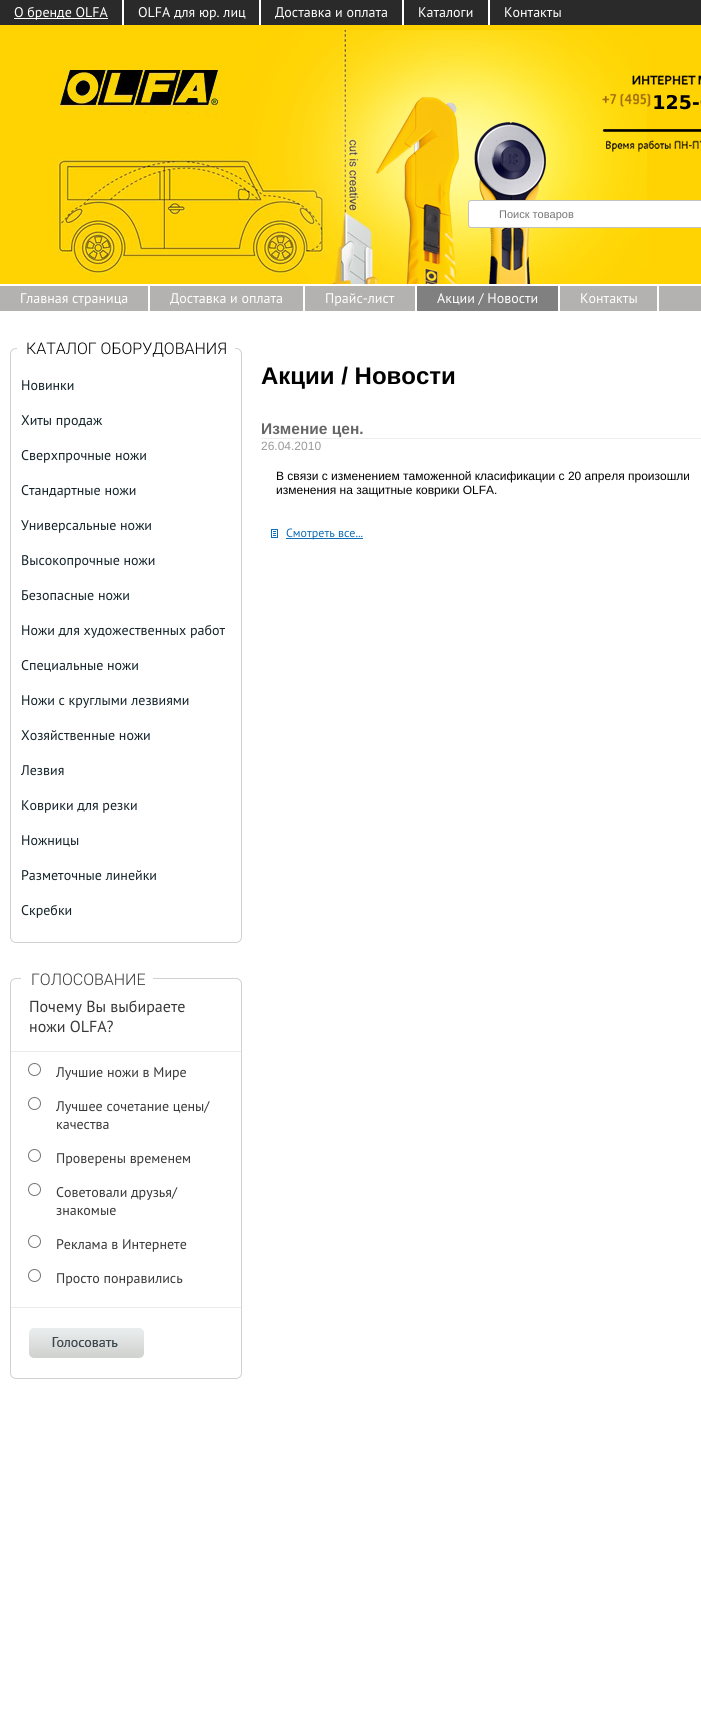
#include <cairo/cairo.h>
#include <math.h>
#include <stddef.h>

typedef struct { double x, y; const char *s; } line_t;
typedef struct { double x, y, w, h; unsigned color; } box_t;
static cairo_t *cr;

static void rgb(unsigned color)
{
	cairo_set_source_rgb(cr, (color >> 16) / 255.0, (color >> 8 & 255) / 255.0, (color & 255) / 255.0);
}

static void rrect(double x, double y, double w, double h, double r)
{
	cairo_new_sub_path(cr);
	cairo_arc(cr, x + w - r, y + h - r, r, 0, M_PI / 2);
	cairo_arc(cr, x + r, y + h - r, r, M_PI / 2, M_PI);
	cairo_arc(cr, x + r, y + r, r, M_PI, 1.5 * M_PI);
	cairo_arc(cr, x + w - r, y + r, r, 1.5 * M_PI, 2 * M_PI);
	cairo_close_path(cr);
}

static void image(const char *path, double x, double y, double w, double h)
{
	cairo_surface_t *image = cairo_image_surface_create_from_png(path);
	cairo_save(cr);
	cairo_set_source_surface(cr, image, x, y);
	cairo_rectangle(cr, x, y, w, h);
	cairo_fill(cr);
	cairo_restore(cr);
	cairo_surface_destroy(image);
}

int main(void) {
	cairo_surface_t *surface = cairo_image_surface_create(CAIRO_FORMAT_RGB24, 701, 1723);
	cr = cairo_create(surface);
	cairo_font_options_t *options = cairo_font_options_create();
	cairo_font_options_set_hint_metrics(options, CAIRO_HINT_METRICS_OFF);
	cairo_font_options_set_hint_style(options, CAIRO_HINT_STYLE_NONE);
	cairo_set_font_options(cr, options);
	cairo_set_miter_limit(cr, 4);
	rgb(0xffd302);
	cairo_paint(cr);
	{
		static const box_t items[] = {
			{0, 0, 701, 25, 0x2a2a2a},
			{122, 0, 2, 25, 0xffffff},
			{14, 18, 94, 1, 0xffffff},
			{259, 0, 2, 25, 0xffffff},
			{402, 0, 2, 25, 0xffffff},
			{488, 0, 2, 25, 0xffffff},
		};
		for (size_t i = 0; i < sizeof items / sizeof *items; i++) {
			rgb(items[i].color);
			cairo_rectangle(cr, items[i].x, items[i].y, items[i].w, items[i].h);
			cairo_fill(cr);
		}
	}
	image("img/1.png", 55, 30, 592, 254);
	image("img/2.png", 60, 70, 160, 52);
	image("img/3.png", 602, 75, 99, 77);
	rrect(468.5, 200.5, 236, 27, 2.5);
	cairo_fill_preserve(cr);
	rgb(0xc2c2c2);
	cairo_set_line_width(cr, 1);
	cairo_stroke(cr);
	{
		static const box_t items[] = {
			{0, 286, 701, 25, 0xb4b1b1},
			{0, 284, 701, 2, 0xffffff},
			{148, 286, 2, 25, 0xffffff},
			{303, 286, 2, 25, 0xffffff},
			{415, 286, 2, 25, 0xffffff},
			{417, 286, 141, 25, 0x808080},
			{558, 286, 2, 25, 0xffffff},
			{657, 286, 2, 25, 0xffffff},
			{0, 311, 701, 1412, 0xffffff},
		};
		for (size_t i = 0; i < sizeof items / sizeof *items; i++) {
			rgb(items[i].color);
			cairo_rectangle(cr, items[i].x, items[i].y, items[i].w, items[i].h);
			cairo_fill(cr);
		}
	}
	rrect(10.5, 348.5, 231, 594, 5.5);
	rgb(0xcfd2cf);
	cairo_stroke(cr);
	rgb(0xffffff);
	cairo_rectangle(cr, 17, 348, 218, 1);
	cairo_fill(cr);
	rrect(10.5, 978.5, 231, 400, 5.5);
	rgb(0xcfd2cf);
	cairo_stroke(cr);
	rgb(0xffffff);
	cairo_rectangle(cr, 21, 978, 132, 1);
	cairo_fill(cr);
	rgb(0xe9ecec);
	cairo_rectangle(cr, 11, 1051, 230, 1);
	cairo_fill(cr);
	cairo_arc(cr, 34.5, 1069.5, 6, 0, 2 * M_PI);
	rgb(0x767676);
	cairo_stroke(cr);
	cairo_arc(cr, 34.5, 1103.5, 6, 0, 2 * M_PI);
	cairo_stroke(cr);
	cairo_arc(cr, 34.5, 1155.5, 6, 0, 2 * M_PI);
	cairo_stroke(cr);
	cairo_arc(cr, 34.5, 1189.5, 6, 0, 2 * M_PI);
	cairo_stroke(cr);
	cairo_arc(cr, 34.5, 1241.5, 6, 0, 2 * M_PI);
	cairo_stroke(cr);
	cairo_arc(cr, 34.5, 1275.5, 6, 0, 2 * M_PI);
	cairo_stroke(cr);
	rgb(0xe9ecec);
	cairo_rectangle(cr, 11, 1307, 230, 1);
	cairo_fill(cr);
	image("img/4.png", 29, 1328, 115, 30);
	rgb(0xeeeeee);
	cairo_rectangle(cr, 261, 438, 440, 1);
	cairo_fill(cr);
	image("img/5.png", 271, 529, 7, 9);
	rgb(0x106cb5);
	cairo_rectangle(cr, 286, 538, 77, 1);
	cairo_fill(cr);
	cairo_select_font_face(cr, "PT Sans", CAIRO_FONT_SLANT_NORMAL, CAIRO_FONT_WEIGHT_NORMAL);
	cairo_set_font_size(cr, 14);
	rgb(0xffffff);
	{
		static const line_t items[] = {
			{14, 17, "О бренде OLFA"},
			{138, 17, "OLFA для юр. лиц"},
			{275, 17, "Доставка и оплата"},
			{418, 17, "Каталоги"},
			{504, 17, "Контакты"},
		};
		for (size_t i = 0; i < sizeof items / sizeof *items; i++) {
			cairo_move_to(cr, items[i].x, items[i].y);
			cairo_show_text(cr, items[i].s);
		}
	}
	cairo_select_font_face(cr, "Liberation Sans", CAIRO_FONT_SLANT_NORMAL, CAIRO_FONT_WEIGHT_NORMAL);
	cairo_set_font_size(cr, 11);
	rgb(0x757575);
	cairo_move_to(cr, 499, 218);
	cairo_show_text(cr, "Поиск товаров");
	cairo_select_font_face(cr, "PT Sans", CAIRO_FONT_SLANT_NORMAL, CAIRO_FONT_WEIGHT_NORMAL);
	cairo_set_font_size(cr, 14);
	rgb(0xffffff);
	{
		static const line_t items[] = {
			{20, 303, "Главная страница"},
			{170, 303, "Доставка и оплата"},
			{325, 303, "Прайс-лист"},
			{437, 303, "Акции / Новости"},
			{580, 303, "Контакты"},
		};
		for (size_t i = 0; i < sizeof items / sizeof *items; i++) {
			cairo_move_to(cr, items[i].x, items[i].y);
			cairo_show_text(cr, items[i].s);
		}
	}
	cairo_select_font_face(cr, "Roboto Light", CAIRO_FONT_SLANT_NORMAL, CAIRO_FONT_WEIGHT_NORMAL);
	cairo_set_font_size(cr, 16);
	rgb(0x000000);
	cairo_move_to(cr, 26, 354);
	cairo_show_text(cr, "КАТАЛОГ ОБОРУДОВАНИЯ");
	cairo_select_font_face(cr, "PT Sans", CAIRO_FONT_SLANT_NORMAL, CAIRO_FONT_WEIGHT_NORMAL);
	cairo_set_font_size(cr, 14);
	rgb(0x132229);
	{
		static const line_t items[] = {
			{21, 390, "Новинки"},
			{21, 425, "Хиты продаж"},
			{21, 460, "Сверхпрочные ножи"},
			{21, 495, "Стандартные ножи"},
			{21, 530, "Универсальные ножи"},
			{21, 565, "Высокопрочные ножи"},
			{21, 600, "Безопасные ножи"},
			{21, 635, "Ножи для художественных работ"},
			{21, 670, "Специальные ножи"},
			{21, 705, "Ножи с круглыми лезвиями"},
			{21, 740, "Хозяйственные ножи"},
			{21, 775, "Лезвия"},
			{21, 810, "Коврики для резки"},
			{21, 845, "Ножницы"},
			{21, 880, "Разметочные линейки"},
			{21, 915, "Скребки"},
		};
		for (size_t i = 0; i < sizeof items / sizeof *items; i++) {
			cairo_move_to(cr, items[i].x, items[i].y);
			cairo_show_text(cr, items[i].s);
		}
	}
	cairo_select_font_face(cr, "Roboto Light", CAIRO_FONT_SLANT_NORMAL, CAIRO_FONT_WEIGHT_NORMAL);
	cairo_set_font_size(cr, 16);
	rgb(0x383838);
	cairo_move_to(cr, 31, 985);
	cairo_show_text(cr, "ГОЛОСОВАНИЕ");
	cairo_select_font_face(cr, "PT Sans", CAIRO_FONT_SLANT_NORMAL, CAIRO_FONT_WEIGHT_NORMAL);
	cairo_move_to(cr, 29, 1012);
	cairo_show_text(cr, "Почему Вы выбираете");
	cairo_move_to(cr, 29, 1032);
	cairo_show_text(cr, "ножи OLFA?");
	cairo_set_font_size(cr, 14);
	{
		static const line_t items[] = {
			{56, 1077, "Лучшие ножи в Мире"},
			{56, 1111, "Лучшее сочетание цены/"},
			{56, 1129, "качества"},
			{56, 1163, "Проверены временем"},
			{56, 1197, "Советовали друзья/"},
			{56, 1215, "знакомые"},
			{56, 1249, "Реклама в Интернете"},
			{56, 1283, "Просто понравились"},
		};
		for (size_t i = 0; i < sizeof items / sizeof *items; i++) {
			cairo_move_to(cr, items[i].x, items[i].y);
			cairo_show_text(cr, items[i].s);
		}
	}
	cairo_select_font_face(cr, "Liberation Sans", CAIRO_FONT_SLANT_NORMAL, CAIRO_FONT_WEIGHT_BOLD);
	cairo_set_font_size(cr, 24);
	rgb(0x000000);
	cairo_move_to(cr, 261, 384);
	cairo_show_text(cr, "Акции / Новости");
	cairo_set_font_size(cr, 15.5);
	rgb(0x666666);
	cairo_move_to(cr, 261, 434);
	cairo_show_text(cr, "Измение цен.");
	cairo_select_font_face(cr, "Liberation Sans", CAIRO_FONT_SLANT_NORMAL, CAIRO_FONT_WEIGHT_NORMAL);
	cairo_set_font_size(cr, 12);
	rgb(0x999999);
	cairo_move_to(cr, 261, 450);
	cairo_show_text(cr, "26.04.2010");
	rgb(0x000000);
	cairo_move_to(cr, 276, 480);
	cairo_show_text(cr, "В связи с изменением таможенной класификации с 20 апреля произошли");
	cairo_move_to(cr, 276, 494);
	cairo_show_text(cr, "изменения на защитные коврики OLFA.");
	cairo_select_font_face(cr, "PT Sans", CAIRO_FONT_SLANT_NORMAL, CAIRO_FONT_WEIGHT_NORMAL);
	rgb(0x106cb5);
	cairo_move_to(cr, 286, 537);
	cairo_show_text(cr, "Смотреть все...");
	cairo_surface_write_to_png(surface, "page.png");
	cairo_font_options_destroy(options);
	cairo_destroy(cr);
	cairo_surface_destroy(surface);
	return 0;
}
